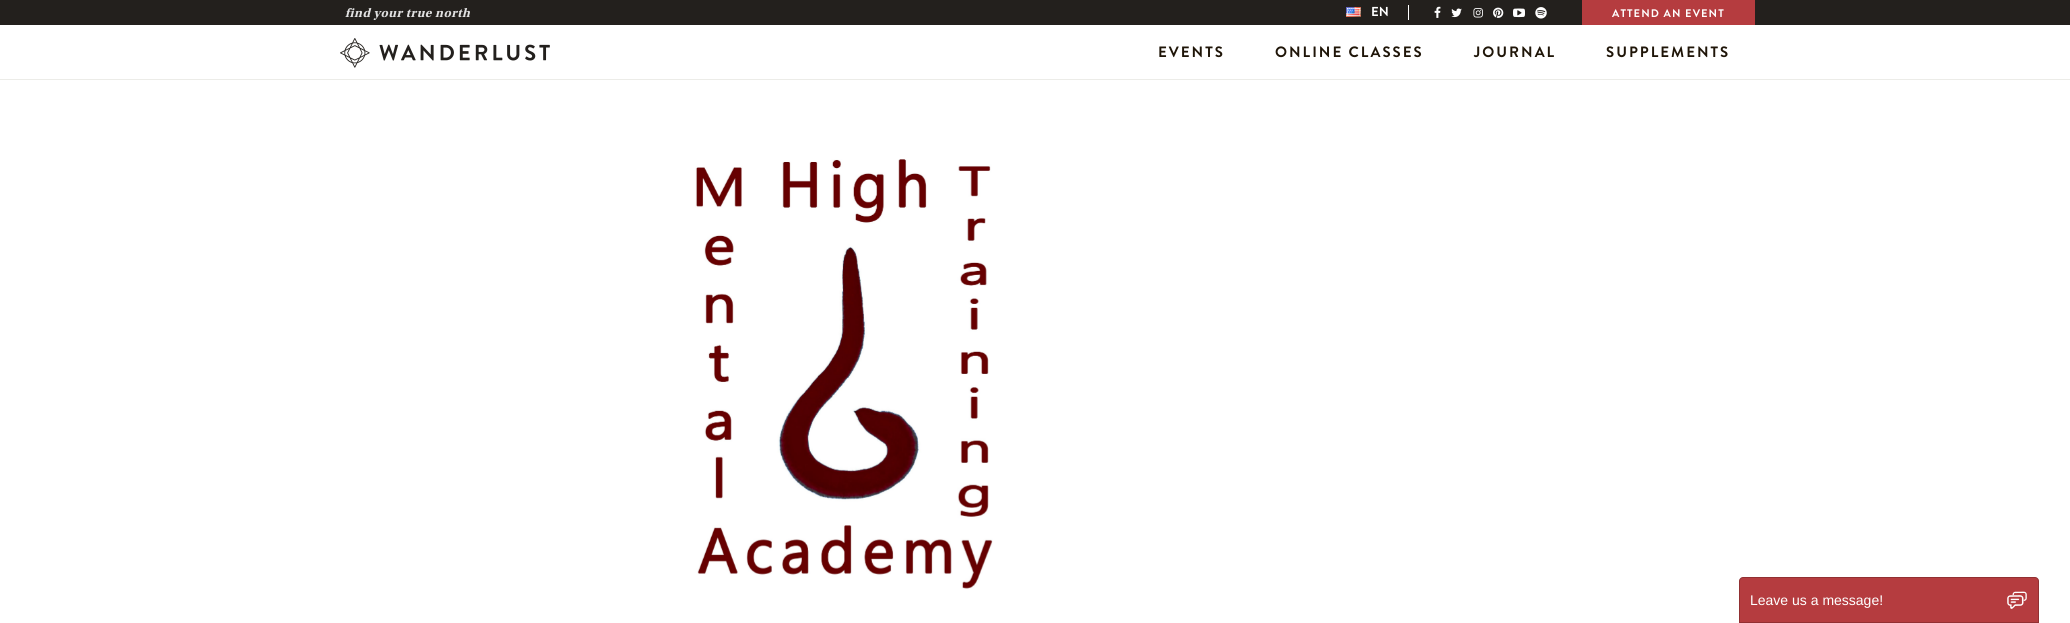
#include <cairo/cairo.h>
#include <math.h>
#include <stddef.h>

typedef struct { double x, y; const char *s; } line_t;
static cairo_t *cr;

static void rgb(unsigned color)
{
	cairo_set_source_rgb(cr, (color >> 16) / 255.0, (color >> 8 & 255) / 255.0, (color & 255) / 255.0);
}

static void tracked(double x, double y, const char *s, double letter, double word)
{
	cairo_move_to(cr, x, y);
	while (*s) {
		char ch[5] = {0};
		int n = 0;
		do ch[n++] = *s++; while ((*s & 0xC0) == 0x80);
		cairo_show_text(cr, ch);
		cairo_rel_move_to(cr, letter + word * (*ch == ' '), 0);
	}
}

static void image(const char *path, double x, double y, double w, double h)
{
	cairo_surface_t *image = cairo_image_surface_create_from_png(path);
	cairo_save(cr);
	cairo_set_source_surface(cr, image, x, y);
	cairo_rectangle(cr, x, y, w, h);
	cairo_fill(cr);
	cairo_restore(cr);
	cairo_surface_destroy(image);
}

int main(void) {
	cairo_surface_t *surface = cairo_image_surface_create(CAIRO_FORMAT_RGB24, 2070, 623);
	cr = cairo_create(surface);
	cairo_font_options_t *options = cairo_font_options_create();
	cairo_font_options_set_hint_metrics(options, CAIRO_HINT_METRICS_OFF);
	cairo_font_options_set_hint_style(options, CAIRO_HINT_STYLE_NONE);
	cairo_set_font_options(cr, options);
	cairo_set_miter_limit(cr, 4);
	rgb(0xffffff);
	cairo_paint(cr);
	rgb(0x23201d);
	cairo_rectangle(cr, 0, 0, 2070, 25);
	cairo_fill(cr);
	image("img/1.png", 1346, 7, 15, 10);
	rgb(0xffffff);
	cairo_rectangle(cr, 1408, 5, 1, 15);
	cairo_fill(cr);
	image("img/2.png", 1434, 6, 7, 12);
	image("img/3.png", 1451, 8, 11, 10);
	image("img/4.png", 1473, 8, 10, 10);
	image("img/5.png", 1493, 7, 11, 11);
	image("img/6.png", 1513, 8, 12, 10);
	image("img/7.png", 1535, 7, 12, 12);
	rgb(0xb53c3f);
	cairo_rectangle(cr, 1582, 0, 173, 25);
	cairo_fill(cr);
	rgb(0xecece8);
	cairo_rectangle(cr, 0, 79, 2070, 1);
	cairo_fill(cr);
	image("img/8.png", 340, 38, 210, 30);
	image("img/9.png", 695, 159, 298, 430);
	rgb(0xb53c3f);
	cairo_new_path(cr);
	cairo_move_to(cr, 1743, 577);
	cairo_line_to(cr, 2035, 577);
	cairo_curve_to(cr, 2037, 577, 2039, 579, 2039, 581);
	cairo_line_to(cr, 2039, 623);
	cairo_line_to(cr, 1739, 623);
	cairo_line_to(cr, 1739, 581);
	cairo_curve_to(cr, 1739, 579, 1741, 577, 1743, 577);
	cairo_close_path(cr);
	cairo_fill(cr);
	image("img/10.png", 2007, 591, 20, 18);
	cairo_new_path(cr);
	cairo_move_to(cr, 1743, 577.5);
	cairo_line_to(cr, 2035, 577.5);
	cairo_curve_to(cr, 2037, 577.5, 2038.5, 579, 2038.5, 581);
	cairo_line_to(cr, 2038.5, 622.5);
	cairo_line_to(cr, 1739.5, 622.5);
	cairo_line_to(cr, 1739.5, 581);
	cairo_curve_to(cr, 1739.5, 579, 1741, 577.5, 1743, 577.5);
	cairo_close_path(cr);
	cairo_set_source_rgba(cr, 0, 0, 0, 0.2);
	cairo_set_line_width(cr, 1);
	cairo_stroke(cr);
	cairo_select_font_face(cr, "Utopia", CAIRO_FONT_SLANT_ITALIC, CAIRO_FONT_WEIGHT_BOLD);
	cairo_set_font_size(cr, 13);
	rgb(0xe1e1e1);
	tracked(345, 17, "find your true north", 0.5, 0);
	cairo_select_font_face(cr, "Brandon Grotesque", CAIRO_FONT_SLANT_NORMAL, CAIRO_FONT_WEIGHT_BOLD);
	rgb(0xffffff);
	cairo_move_to(cr, 1371, 16);
	cairo_show_text(cr, "EN");
	cairo_set_font_size(cr, 11);
	tracked(1612, 17, "ATTEND AN EVENT", 1.1, 0);
	cairo_set_font_size(cr, 15);
	rgb(0x1f1508);
	{
		static const line_t items[] = {
			{1158, 57, "EVENTS"},
			{1275, 57, "ONLINE CLASSES"},
			{1474, 57, "JOURNAL"},
			{1606, 57, "SUPPLEMENTS"},
		};
		for (size_t i = 0; i < sizeof items / sizeof *items; i++) {
			tracked(items[i].x, items[i].y, items[i].s, 2, 0);
		}
	}
	cairo_select_font_face(cr, "Liberation Sans", CAIRO_FONT_SLANT_NORMAL, CAIRO_FONT_WEIGHT_NORMAL);
	cairo_set_font_size(cr, 14);
	rgb(0xffffff);
	cairo_move_to(cr, 1750, 605);
	cairo_show_text(cr, "Leave us a message!");
	cairo_surface_write_to_png(surface, "page.png");
	cairo_font_options_destroy(options);
	cairo_destroy(cr);
	cairo_surface_destroy(surface);
	return 0;
}
